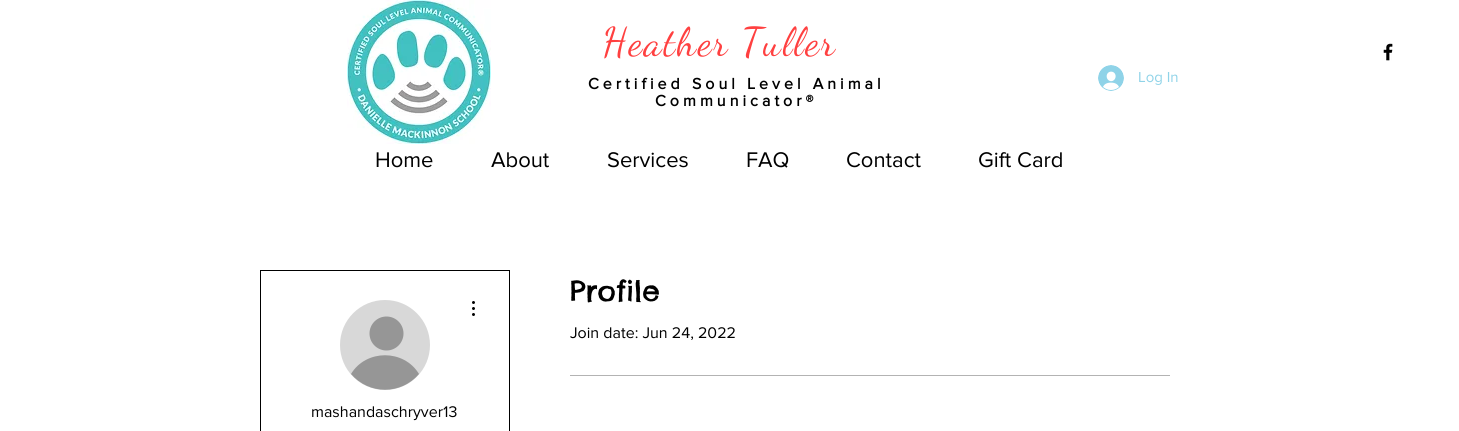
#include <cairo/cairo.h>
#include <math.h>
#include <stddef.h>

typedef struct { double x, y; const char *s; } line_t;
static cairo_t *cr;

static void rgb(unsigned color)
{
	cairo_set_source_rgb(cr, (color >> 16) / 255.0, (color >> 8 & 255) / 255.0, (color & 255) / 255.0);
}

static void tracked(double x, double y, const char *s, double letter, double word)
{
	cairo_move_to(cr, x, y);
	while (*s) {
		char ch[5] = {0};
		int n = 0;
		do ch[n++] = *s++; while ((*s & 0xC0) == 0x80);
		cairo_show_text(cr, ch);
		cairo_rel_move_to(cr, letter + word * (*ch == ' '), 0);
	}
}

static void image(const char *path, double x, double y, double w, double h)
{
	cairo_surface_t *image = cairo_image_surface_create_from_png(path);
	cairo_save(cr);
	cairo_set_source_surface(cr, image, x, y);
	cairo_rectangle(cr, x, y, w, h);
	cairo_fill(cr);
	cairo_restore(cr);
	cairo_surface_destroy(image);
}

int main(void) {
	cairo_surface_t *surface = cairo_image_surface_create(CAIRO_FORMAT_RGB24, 1459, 431);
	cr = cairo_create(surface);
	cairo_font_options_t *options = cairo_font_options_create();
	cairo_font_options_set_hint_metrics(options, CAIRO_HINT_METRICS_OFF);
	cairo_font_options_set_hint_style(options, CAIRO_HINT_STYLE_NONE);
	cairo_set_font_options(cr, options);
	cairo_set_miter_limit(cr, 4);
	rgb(0xffffff);
	cairo_paint(cr);
	image("img/1.png", 347, 0, 144, 144);
	image("img/2.png", 1098, 65, 26, 26);
	image("img/3.png", 1383, 43, 10, 18);
	rgb(0xb3b3b3);
	cairo_rectangle(cr, 570, 375, 600, 1);
	cairo_fill(cr);
	cairo_rectangle(cr, 260.5, 270.5, 249, 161);
	rgb(0x000000);
	cairo_set_line_width(cr, 1);
	cairo_stroke(cr);
	rgb(0xd8d8d8);
	cairo_arc(cr, 385, 345, 45, 0, 2 * M_PI);
	cairo_fill(cr);
	rgb(0x969696);
	cairo_arc(cr, 386.5, 333.5, 17, 0, 2 * M_PI);
	cairo_fill(cr);
	cairo_new_path(cr);
	cairo_move_to(cr, 419, 374);
	cairo_curve_to(cr, 401, 395, 369, 395, 351, 374);
	cairo_curve_to(cr, 366, 349, 404, 349, 419, 374);
	cairo_close_path(cr);
	cairo_fill(cr);
	image("img/4.png", 472, 301, 3, 15);
	cairo_select_font_face(cr, "Dancing Script", CAIRO_FONT_SLANT_NORMAL, CAIRO_FONT_WEIGHT_NORMAL);
	cairo_set_font_size(cr, 40);
	rgb(0xff4040);
	tracked(602, 55, "Heather Tuller", 2, 0);
	cairo_select_font_face(cr, "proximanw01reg", CAIRO_FONT_SLANT_NORMAL, CAIRO_FONT_WEIGHT_BOLD);
	cairo_set_font_size(cr, 16);
	rgb(0x000000);
	tracked(588, 89, "Certified Soul Level Animal", 4, 0);
	tracked(655, 106, "Communicator®", 4, 0);
	cairo_select_font_face(cr, "proximanw01reg", CAIRO_FONT_SLANT_NORMAL, CAIRO_FONT_WEIGHT_NORMAL);
	cairo_set_font_size(cr, 15);
	rgb(0x8fd3e8);
	cairo_move_to(cr, 1138, 82);
	cairo_show_text(cr, "Log In");
	cairo_set_font_size(cr, 22);
	rgb(0x000000);
	{
		static const line_t items[] = {
			{375, 167, "Home"},
			{491, 167, "About"},
			{607, 167, "Services"},
			{746, 167, "FAQ"},
			{846, 167, "Contact"},
			{978, 167, "Gift Card"},
		};
		for (size_t i = 0; i < sizeof items / sizeof *items; i++) {
			cairo_move_to(cr, items[i].x, items[i].y);
			cairo_show_text(cr, items[i].s);
		}
	}
	cairo_select_font_face(cr, "Chelsea Market", CAIRO_FONT_SLANT_NORMAL, CAIRO_FONT_WEIGHT_NORMAL);
	cairo_set_font_size(cr, 28);
	cairo_move_to(cr, 570, 301);
	cairo_show_text(cr, "Profile");
	cairo_select_font_face(cr, "proximanw01reg", CAIRO_FONT_SLANT_NORMAL, CAIRO_FONT_WEIGHT_NORMAL);
	cairo_set_font_size(cr, 16);
	cairo_move_to(cr, 570, 338);
	cairo_show_text(cr, "Join date: Jun 24, 2022");
	cairo_move_to(cr, 311, 417);
	cairo_show_text(cr, "mashandaschryver13");
	cairo_surface_write_to_png(surface, "page.png");
	cairo_font_options_destroy(options);
	cairo_destroy(cr);
	cairo_surface_destroy(surface);
	return 0;
}
